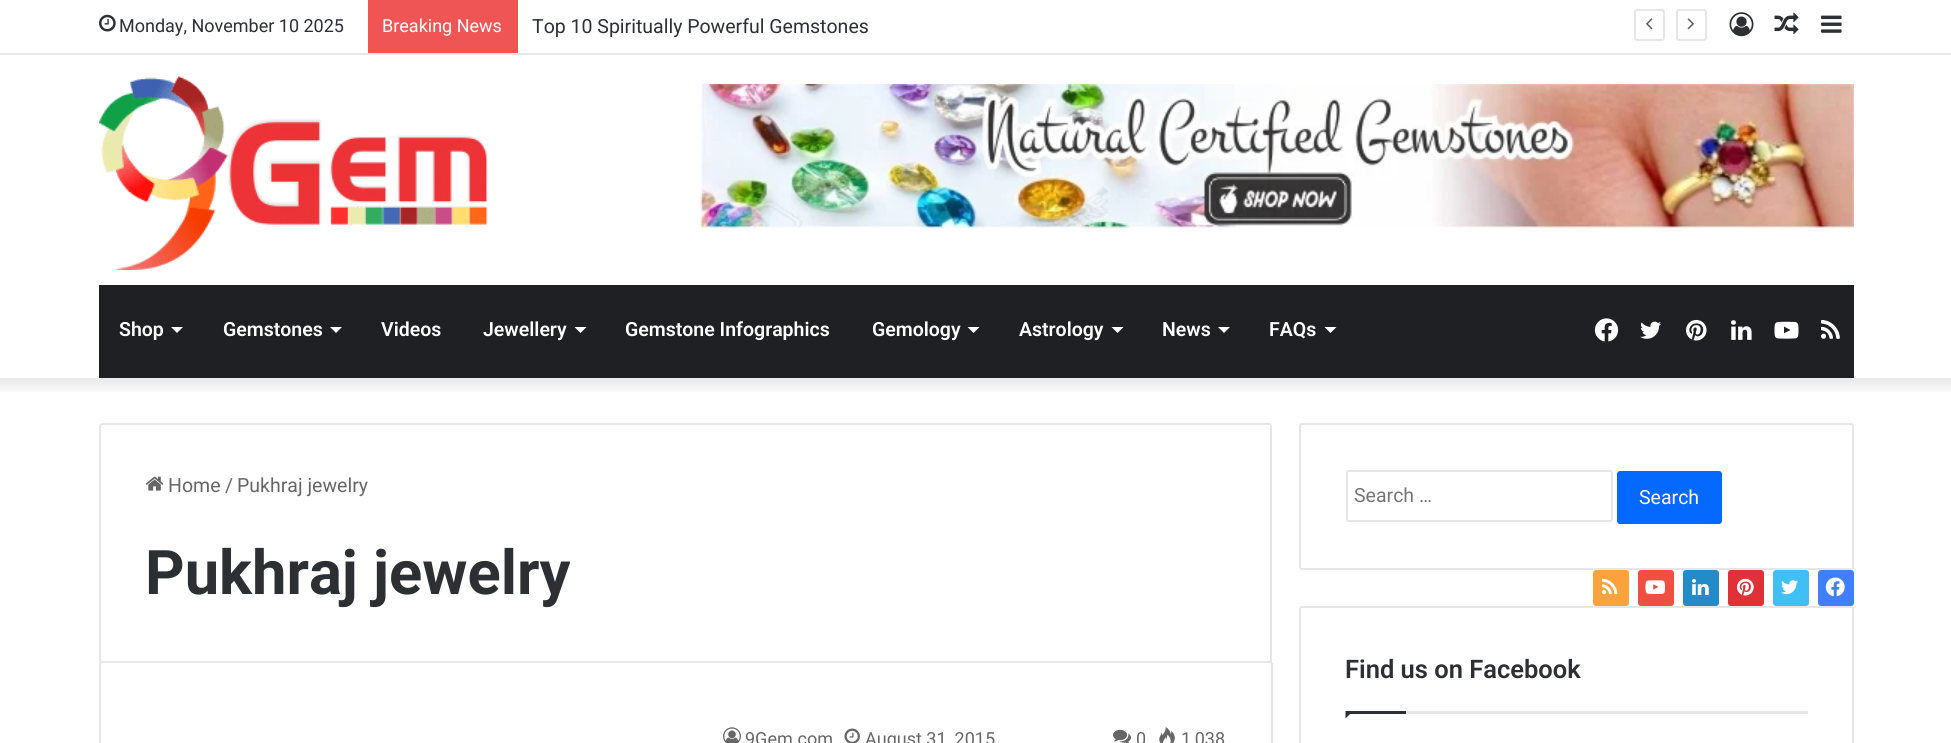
#include <cairo/cairo.h>
#include <math.h>
#include <stddef.h>

typedef struct { double x, y; const char *s; } line_t;
static cairo_t *cr;

static void rgb(unsigned color)
{
	cairo_set_source_rgb(cr, (color >> 16) / 255.0, (color >> 8 & 255) / 255.0, (color & 255) / 255.0);
}

static void rrect(double x, double y, double w, double h, double r)
{
	cairo_new_sub_path(cr);
	cairo_arc(cr, x + w - r, y + h - r, r, 0, M_PI / 2);
	cairo_arc(cr, x + r, y + h - r, r, M_PI / 2, M_PI);
	cairo_arc(cr, x + r, y + r, r, M_PI, 1.5 * M_PI);
	cairo_arc(cr, x + w - r, y + r, r, 1.5 * M_PI, 2 * M_PI);
	cairo_close_path(cr);
}

static void soft_shadow(double x, double y, double w, double h, double r, double blur, double alpha)
{
	cairo_push_group_with_content(cr, CAIRO_CONTENT_ALPHA);
	cairo_set_operator(cr, CAIRO_OPERATOR_SOURCE);
	for (int i = 15; i >= -15 && fmin(w, h) + blur * i / 3 > 0; i -= 2) {
		double e = blur * i / 6;
		cairo_set_source_rgba(cr, 0, 0, 0, alpha * erfc((i - 1) / 8.5) / 2);
		rrect(x - e, y - e, w + 2 * e, h + 2 * e, fmax(0, fmin(r + e + blur * .6, fmin(w, h) / 2 + e)));
		cairo_fill(cr);
	}
	cairo_pattern_t *soft = cairo_pop_group(cr);
	cairo_mask(cr, soft);
	cairo_pattern_destroy(soft);
}

static void image(const char *path, double x, double y, double w, double h)
{
	cairo_surface_t *image = cairo_image_surface_create_from_png(path);
	cairo_save(cr);
	cairo_set_source_surface(cr, image, x, y);
	cairo_rectangle(cr, x, y, w, h);
	cairo_fill(cr);
	cairo_restore(cr);
	cairo_surface_destroy(image);
}

int main(void) {
	cairo_surface_t *surface = cairo_image_surface_create(CAIRO_FORMAT_RGB24, 1951, 743);
	cr = cairo_create(surface);
	cairo_font_options_t *options = cairo_font_options_create();
	cairo_font_options_set_hint_metrics(options, CAIRO_HINT_METRICS_OFF);
	cairo_font_options_set_hint_style(options, CAIRO_HINT_STYLE_NONE);
	cairo_set_font_options(cr, options);
	cairo_set_miter_limit(cr, 4);
	rgb(0xffffff);
	cairo_paint(cr);
	cairo_save(cr);
	cairo_rectangle(cr, 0, 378, 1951, 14);
	cairo_clip(cr);
	rgb(0x000000);
	soft_shadow(-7, -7, 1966, 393, 0, 7.5, 0.1);
	cairo_restore(cr);
	rgb(0xe6e6e6);
	cairo_rectangle(cr, 0, 53, 1951, 2);
	cairo_fill(cr);
	image("img/1.png", 99, 14, 17, 18);
	rgb(0xf05555);
	cairo_rectangle(cr, 368, 0, 150, 53);
	cairo_fill(cr);
	rrect(1635, 10, 29, 30, 2);
	rgb(0xe6e6e6);
	cairo_stroke(cr);
	image("img/2.png", 1646, 18, 7, 12);
	rrect(1677, 10, 29, 30, 2);
	cairo_stroke(cr);
	image("img/3.png", 1687, 18, 7, 12);
	image("img/4.png", 1729, 12, 25, 25);
	image("img/5.png", 1774, 12, 25, 22);
	image("img/6.png", 1821, 15, 21, 18);
	image("img/7.png", 99, 76, 390, 194);
	image("img/8.png", 700, 84, 1154, 144);
	rgb(0x1f2024);
	cairo_rectangle(cr, 99, 285, 1755, 93);
	cairo_fill(cr);
	rgb(0xffffff);
	cairo_new_path(cr);
	cairo_move_to(cr, 171, 327);
	cairo_line_to(cr, 183, 327);
	cairo_line_to(cr, 177, 333);
	cairo_close_path(cr);
	cairo_fill(cr);
	cairo_new_path(cr);
	cairo_move_to(cr, 330, 327);
	cairo_line_to(cr, 342, 327);
	cairo_line_to(cr, 336, 333);
	cairo_close_path(cr);
	cairo_fill(cr);
	cairo_new_path(cr);
	cairo_move_to(cr, 574.5, 327);
	cairo_line_to(cr, 586.5, 327);
	cairo_line_to(cr, 580.5, 333);
	cairo_close_path(cr);
	cairo_fill(cr);
	cairo_new_path(cr);
	cairo_move_to(cr, 967.5, 327);
	cairo_line_to(cr, 979.5, 327);
	cairo_line_to(cr, 973.5, 333);
	cairo_close_path(cr);
	cairo_fill(cr);
	cairo_new_path(cr);
	cairo_move_to(cr, 1111.5, 327);
	cairo_line_to(cr, 1123.5, 327);
	cairo_line_to(cr, 1117.5, 333);
	cairo_close_path(cr);
	cairo_fill(cr);
	cairo_new_path(cr);
	cairo_move_to(cr, 1218, 327);
	cairo_line_to(cr, 1230, 327);
	cairo_line_to(cr, 1224, 333);
	cairo_close_path(cr);
	cairo_fill(cr);
	cairo_new_path(cr);
	cairo_move_to(cr, 1324.5, 327);
	cairo_line_to(cr, 1336.5, 327);
	cairo_line_to(cr, 1330.5, 333);
	cairo_close_path(cr);
	cairo_fill(cr);
	image("img/9.png", 1594, 318, 25, 24);
	image("img/10.png", 1640, 321, 21, 18);
	image("img/11.png", 1686, 319, 21, 22);
	image("img/12.png", 1731, 320, 21, 20);
	image("img/13.png", 1774, 321, 25, 18);
	image("img/14.png", 1821, 319, 19, 20);
	cairo_new_path(cr);
	cairo_move_to(cr, 102, 424);
	cairo_line_to(cr, 1269, 424);
	cairo_curve_to(cr, 1270, 424, 1271, 425, 1271, 426);
	cairo_line_to(cr, 1271, 662);
	cairo_line_to(cr, 100, 662);
	cairo_line_to(cr, 100, 426);
	cairo_curve_to(cr, 100, 425, 101, 424, 102, 424);
	cairo_close_path(cr);
	rgb(0xe6e6e6);
	cairo_stroke(cr);
	image("img/15.png", 145, 476, 19, 15);
	cairo_rectangle(cr, 1271, 663, 2, 80);
	cairo_fill(cr);
	cairo_rectangle(cr, 99, 663, 2, 80);
	cairo_fill(cr);
	image("img/16.png", 723, 727, 18, 16);
	image("img/17.png", 844, 728, 16, 15);
	image("img/18.png", 1113, 729, 18, 14);
	image("img/19.png", 1159, 727, 16, 16);
	rrect(1300, 424, 553, 145, 2);
	cairo_stroke(cr);
	rrect(1347, 471, 265, 50, 2);
	cairo_stroke(cr);
	rgb(0x0669ff);
	rrect(1617, 471, 105, 53, 3);
	cairo_fill(cr);
	rgb(0xfaa33d);
	rrect(1593, 570, 36, 36, 3);
	cairo_fill(cr);
	image("img/20.png", 1602, 578, 16, 17);
	rgb(0xef4e41);
	rrect(1638, 570, 36, 36, 3);
	cairo_fill(cr);
	image("img/21.png", 1645, 580, 20, 14);
	rgb(0x238cc8);
	rrect(1683, 570, 36, 36, 3);
	cairo_fill(cr);
	image("img/22.png", 1692, 579, 17, 16);
	rgb(0xe13138);
	rrect(1728, 570, 36, 36, 3);
	cairo_fill(cr);
	image("img/23.png", 1737, 578, 17, 18);
	rgb(0x40bff5);
	rrect(1773, 570, 36, 36, 3);
	cairo_fill(cr);
	image("img/24.png", 1781, 580, 17, 15);
	rgb(0x4080ff);
	rrect(1818, 570, 36, 36, 3);
	cairo_fill(cr);
	image("img/25.png", 1825, 577, 20, 20);
	rrect(1300, 607, 553, 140, 2);
	rgb(0xe6e6e6);
	cairo_stroke(cr);
	cairo_rectangle(cr, 1406, 711, 402, 3);
	cairo_fill(cr);
	rgb(0x2c2f34);
	cairo_new_path(cr);
	cairo_move_to(cr, 1345.5, 711);
	cairo_line_to(cr, 1353, 711);
	cairo_line_to(cr, 1345.5, 718.5);
	cairo_close_path(cr);
	cairo_fill(cr);
	cairo_rectangle(cr, 1346, 711, 60, 3);
	cairo_fill(cr);
	cairo_select_font_face(cr, "Roboto", CAIRO_FONT_SLANT_NORMAL, CAIRO_FONT_WEIGHT_NORMAL);
	cairo_set_font_size(cr, 18);
	cairo_move_to(cr, 119, 32);
	cairo_show_text(cr, "Monday, November 10 2025");
	rgb(0xffffff);
	cairo_move_to(cr, 382, 32);
	cairo_show_text(cr, "Breaking News");
	cairo_set_font_size(cr, 19.5);
	rgb(0x2c2f34);
	cairo_move_to(cr, 532, 33);
	cairo_show_text(cr, "Top 10 Spiritually Powerful Gemstones");
	cairo_select_font_face(cr, "Roboto SemiBold", CAIRO_FONT_SLANT_NORMAL, CAIRO_FONT_WEIGHT_NORMAL);
	rgb(0xffffff);
	{
		static const line_t items[] = {
			{119, 336, "Shop"},
			{223, 336, "Gemstones"},
			{381, 336, "Videos"},
			{483, 336, "Jewellery"},
			{625, 336, "Gemstone Infographics"},
			{872, 336, "Gemology"},
			{1019, 336, "Astrology"},
			{1162, 336, "News"},
			{1269, 336, "FAQs"},
		};
		for (size_t i = 0; i < sizeof items / sizeof *items; i++) {
			cairo_move_to(cr, items[i].x, items[i].y);
			cairo_show_text(cr, items[i].s);
		}
	}
	cairo_select_font_face(cr, "Roboto", CAIRO_FONT_SLANT_NORMAL, CAIRO_FONT_WEIGHT_NORMAL);
	rgb(0x666666);
	{
		static const line_t items[] = {
			{168, 492, "Home"},
			{225, 492, "/"},
			{237, 492, "Pukhraj jewelry"},
		};
		for (size_t i = 0; i < sizeof items / sizeof *items; i++) {
			cairo_move_to(cr, items[i].x, items[i].y);
			cairo_show_text(cr, items[i].s);
		}
	}
	cairo_select_font_face(cr, "Roboto", CAIRO_FONT_SLANT_NORMAL, CAIRO_FONT_WEIGHT_BOLD);
	cairo_set_font_size(cr, 61.5);
	rgb(0x2c2f34);
	cairo_move_to(cr, 145, 594);
	cairo_show_text(cr, "Pukhraj jewelry");
	cairo_select_font_face(cr, "Roboto", CAIRO_FONT_SLANT_NORMAL, CAIRO_FONT_WEIGHT_NORMAL);
	cairo_set_font_size(cr, 18);
	rgb(0x666666);
	{
		static const line_t items[] = {
			{745, 745, "9Gem.com"},
			{865, 745, "August 31, 2015"},
			{1136, 745, "0"},
			{1181, 745, "1,038"},
		};
		for (size_t i = 0; i < sizeof items / sizeof *items; i++) {
			cairo_move_to(cr, items[i].x, items[i].y);
			cairo_show_text(cr, items[i].s);
		}
	}
	cairo_set_font_size(cr, 19.5);
	rgb(0x757575);
	cairo_move_to(cr, 1354, 502);
	cairo_show_text(cr, "Search …");
	rgb(0xffffff);
	cairo_move_to(cr, 1639, 504);
	cairo_show_text(cr, "Search");
	cairo_select_font_face(cr, "Roboto SemiBold", CAIRO_FONT_SLANT_NORMAL, CAIRO_FONT_WEIGHT_NORMAL);
	cairo_set_font_size(cr, 25.5);
	rgb(0x2c2f34);
	cairo_move_to(cr, 1345, 678);
	cairo_show_text(cr, "Find us on Facebook");
	cairo_surface_write_to_png(surface, "page.png");
	cairo_font_options_destroy(options);
	cairo_destroy(cr);
	cairo_surface_destroy(surface);
	return 0;
}
